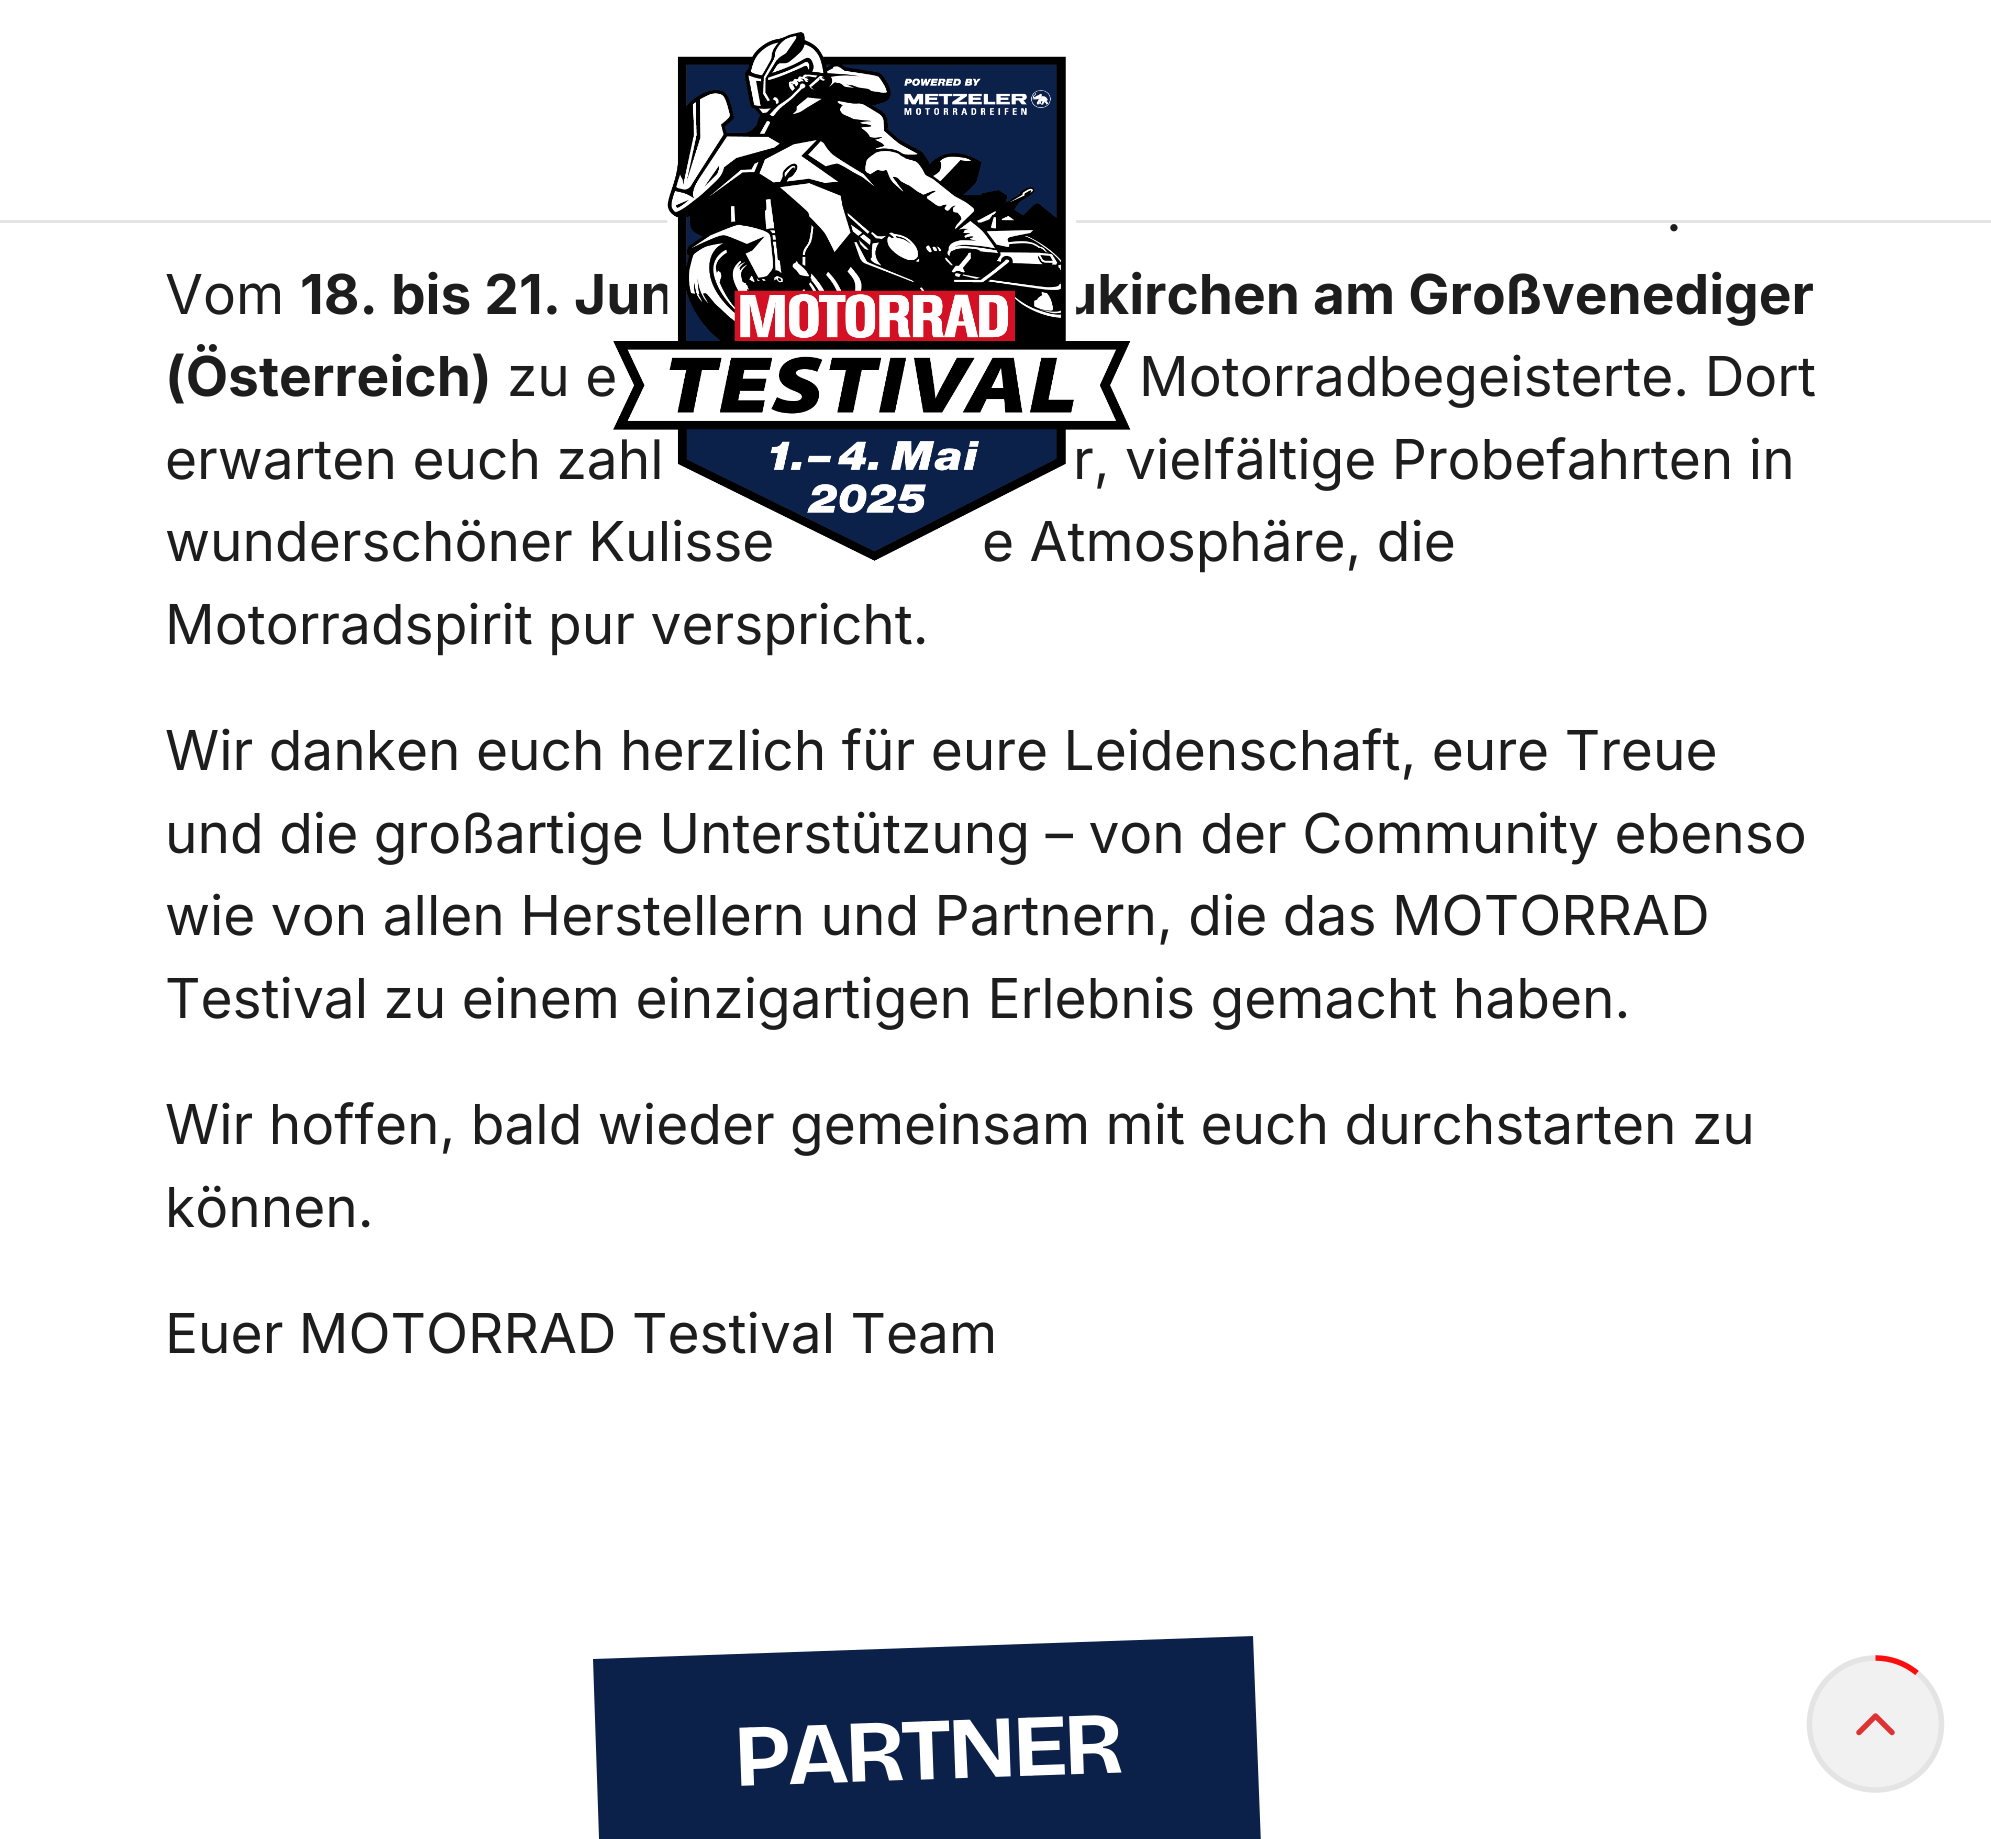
#include <cairo/cairo.h>
#include <math.h>
#include <stddef.h>

typedef struct { double x, y; const char *s; } line_t;
static cairo_t *cr;

static void rgb(unsigned color)
{
	cairo_set_source_rgb(cr, (color >> 16) / 255.0, (color >> 8 & 255) / 255.0, (color & 255) / 255.0);
}

static void tracked(double x, double y, const char *s, double letter, double word)
{
	cairo_move_to(cr, x, y);
	while (*s) {
		char ch[5] = {0};
		int n = 0;
		do ch[n++] = *s++; while ((*s & 0xC0) == 0x80);
		cairo_show_text(cr, ch);
		cairo_rel_move_to(cr, letter + word * (*ch == ' '), 0);
	}
}

static void image(const char *path, double x, double y, double w, double h)
{
	cairo_surface_t *image = cairo_image_surface_create_from_png(path);
	cairo_save(cr);
	cairo_set_source_surface(cr, image, x, y);
	cairo_rectangle(cr, x, y, w, h);
	cairo_fill(cr);
	cairo_restore(cr);
	cairo_surface_destroy(image);
}

int main(void) {
	cairo_surface_t *surface = cairo_image_surface_create(CAIRO_FORMAT_RGB24, 1991, 1839);
	cr = cairo_create(surface);
	cairo_font_options_t *options = cairo_font_options_create();
	cairo_font_options_set_hint_metrics(options, CAIRO_HINT_METRICS_OFF);
	cairo_font_options_set_hint_style(options, CAIRO_HINT_STYLE_NONE);
	cairo_set_font_options(cr, options);
	cairo_set_miter_limit(cr, 4);
	rgb(0xffffff);
	cairo_paint(cr);
	rgb(0xe4e4e4);
	cairo_rectangle(cr, 0, 220, 1991, 3);
	cairo_fill(cr);
	rgb(0x0b214a);
	cairo_new_path(cr);
	cairo_move_to(cr, 593, 1659);
	cairo_line_to(cr, 1253, 1636);
	cairo_line_to(cr, 1261, 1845);
	cairo_line_to(cr, 600, 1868);
	cairo_close_path(cr);
	cairo_fill(cr);
	rgb(0xf1f1f1);
	cairo_arc(cr, 1876, 1724, 66, 0, 2 * M_PI);
	cairo_fill(cr);
	image("img/2.png", 1856, 1713, 39, 23);
	cairo_new_path(cr);
	cairo_move_to(cr, 1875.5, 1658);
	cairo_curve_to(cr, 1912, 1658, 1941.5, 1688, 1941.5, 1724);
	cairo_curve_to(cr, 1941.5, 1760.5, 1912, 1790, 1875.5, 1790);
	cairo_curve_to(cr, 1839, 1790, 1809.5, 1760.5, 1809.5, 1724);
	cairo_curve_to(cr, 1809.5, 1688, 1839, 1658, 1875.5, 1658);
	rgb(0xe4e4e4);
	cairo_set_line_width(cr, 5.5);
	cairo_stroke(cr);
	cairo_new_path(cr);
	cairo_move_to(cr, 1875.5, 1658);
	cairo_curve_to(cr, 1891, 1658, 1905.5, 1663.5, 1917, 1673);
	rgb(0xff0c0c);
	cairo_stroke(cr);
	cairo_select_font_face(cr, "Inter", CAIRO_FONT_SLANT_NORMAL, CAIRO_FONT_WEIGHT_NORMAL);
	cairo_set_font_size(cr, 55);
	rgb(0x1d1d1d);
	cairo_move_to(cr, 1666, 231);
	cairo_show_text(cr, ".");
	cairo_move_to(cr, 165, 314);
	cairo_show_text(cr, "Vom");
	cairo_select_font_face(cr, "Inter", CAIRO_FONT_SLANT_NORMAL, CAIRO_FONT_WEIGHT_BOLD);
	{
		static const line_t items[] = {
			{300, 314, "18. bis 21. Jun"},
			{1063, 314, "ukirchen am Großvenediger"},
			{165, 396, "(Österreich)"},
		};
		for (size_t i = 0; i < sizeof items / sizeof *items; i++) {
			cairo_move_to(cr, items[i].x, items[i].y);
			cairo_show_text(cr, items[i].s);
		}
	}
	cairo_select_font_face(cr, "Inter", CAIRO_FONT_SLANT_NORMAL, CAIRO_FONT_WEIGHT_NORMAL);
	{
		static const line_t items[] = {
			{507, 396, "zu e"},
			{1139, 396, "Motorradbegeisterte. Dort"},
			{165, 479, "erwarten euch zahl"},
			{1073, 479, "r, vielfältige Probefahrten in"},
			{165, 561, "wunderschöner Kulisse"},
			{982, 561, "e Atmosphäre, die"},
		};
		for (size_t i = 0; i < sizeof items / sizeof *items; i++) {
			cairo_move_to(cr, items[i].x, items[i].y);
			cairo_show_text(cr, items[i].s);
		}
	}
	image("img/1.png", 613, 32, 518, 530);
	{
		static const line_t items[] = {
			{165, 644, "Motorradspirit pur verspricht."},
			{165, 770, "Wir danken euch herzlich für eure Leidenschaft, eure Treue"},
			{165, 853, "und die großartige Unterstützung – von der Community ebenso"},
			{165, 935, "wie von allen Herstellern und Partnern, die das MOTORRAD"},
			{165, 1018, "Testival zu einem einzigartigen Erlebnis gemacht haben."},
			{165, 1144, "Wir hoffen, bald wieder gemeinsam mit euch durchstarten zu"},
			{165, 1227, "können."},
			{165, 1353, "Euer MOTORRAD Testival Team"},
		};
		for (size_t i = 0; i < sizeof items / sizeof *items; i++) {
			cairo_move_to(cr, items[i].x, items[i].y);
			cairo_show_text(cr, items[i].s);
		}
	}
	cairo_select_font_face(cr, "Bricolage Grotesque", CAIRO_FONT_SLANT_NORMAL, CAIRO_FONT_WEIGHT_BOLD);
	cairo_set_font_size(cr, 88);
	rgb(0xffffff);
	cairo_save(cr);
	cairo_translate(cr, 735, 1786);
	cairo_rotate(cr, -2 * M_PI / 180);
	tracked(0, 0, "PARTNER", -3.5, 0);
	cairo_restore(cr);
	cairo_surface_write_to_png(surface, "page.png");
	cairo_font_options_destroy(options);
	cairo_destroy(cr);
	cairo_surface_destroy(surface);
	return 0;
}
